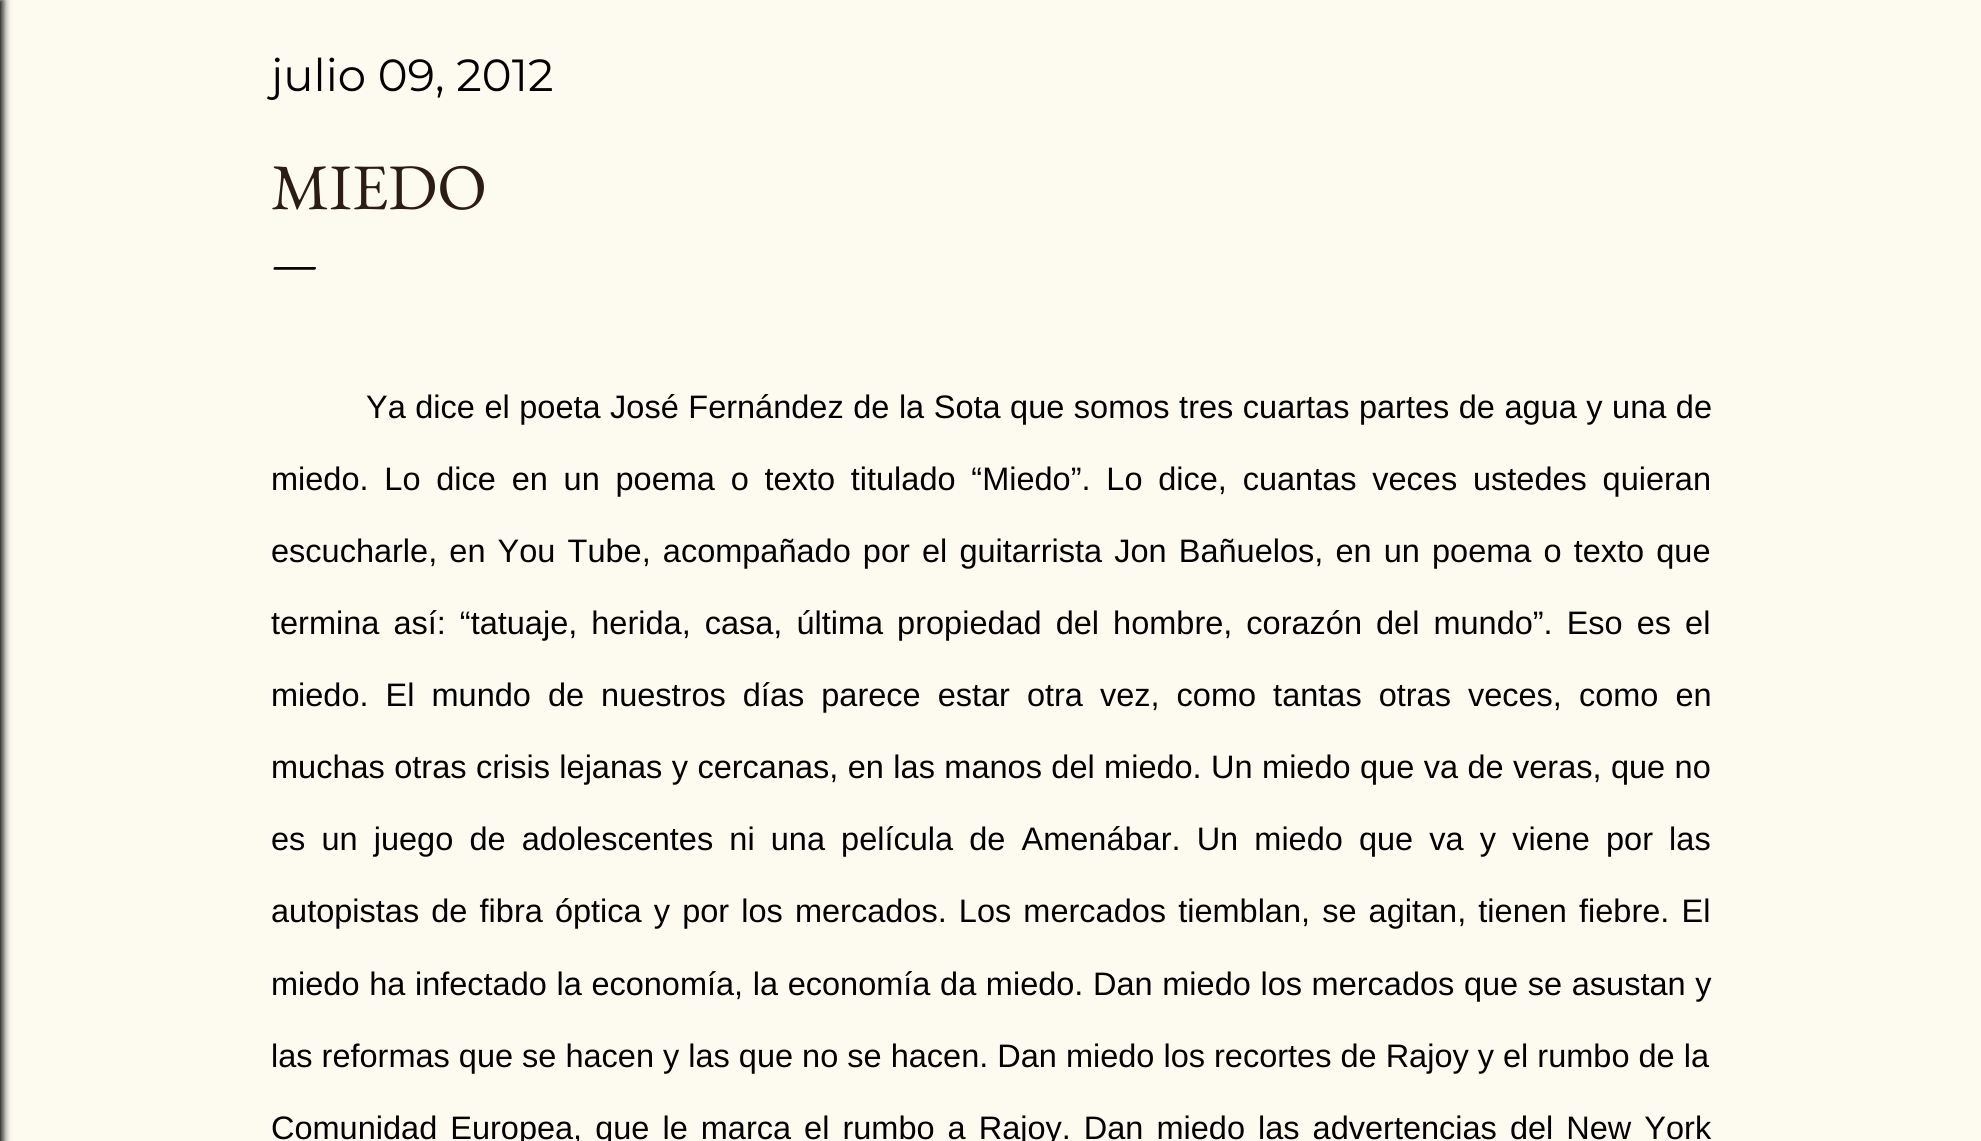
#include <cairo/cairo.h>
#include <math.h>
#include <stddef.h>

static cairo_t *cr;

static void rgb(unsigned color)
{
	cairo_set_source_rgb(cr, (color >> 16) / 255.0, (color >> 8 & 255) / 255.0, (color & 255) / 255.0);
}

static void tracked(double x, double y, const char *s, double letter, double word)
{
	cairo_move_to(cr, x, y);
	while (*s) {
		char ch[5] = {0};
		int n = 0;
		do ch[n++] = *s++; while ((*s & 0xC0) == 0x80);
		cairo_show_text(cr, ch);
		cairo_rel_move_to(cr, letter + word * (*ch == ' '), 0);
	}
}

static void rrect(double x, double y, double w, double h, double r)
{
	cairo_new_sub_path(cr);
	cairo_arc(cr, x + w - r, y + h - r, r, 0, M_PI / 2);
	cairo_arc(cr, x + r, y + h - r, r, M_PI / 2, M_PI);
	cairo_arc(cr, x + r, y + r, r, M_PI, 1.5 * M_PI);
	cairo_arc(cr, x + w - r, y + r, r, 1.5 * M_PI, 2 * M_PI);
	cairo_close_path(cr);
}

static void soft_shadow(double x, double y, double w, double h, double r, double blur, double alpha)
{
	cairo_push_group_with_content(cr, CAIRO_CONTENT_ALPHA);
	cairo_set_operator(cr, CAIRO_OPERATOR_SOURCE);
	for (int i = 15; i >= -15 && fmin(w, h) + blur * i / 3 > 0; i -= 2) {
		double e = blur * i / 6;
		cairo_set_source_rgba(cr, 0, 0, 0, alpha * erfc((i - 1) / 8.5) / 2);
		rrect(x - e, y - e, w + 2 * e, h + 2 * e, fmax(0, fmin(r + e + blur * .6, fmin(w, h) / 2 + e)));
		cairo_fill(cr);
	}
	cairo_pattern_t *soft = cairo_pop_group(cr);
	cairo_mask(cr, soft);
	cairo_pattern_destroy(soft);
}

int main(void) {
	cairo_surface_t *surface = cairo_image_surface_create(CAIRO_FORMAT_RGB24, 1981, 1141);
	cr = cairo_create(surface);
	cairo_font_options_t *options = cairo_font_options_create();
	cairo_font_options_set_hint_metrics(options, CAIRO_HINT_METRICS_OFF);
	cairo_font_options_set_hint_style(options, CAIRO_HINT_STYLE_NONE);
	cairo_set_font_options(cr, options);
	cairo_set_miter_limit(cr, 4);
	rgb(0xfdfaf0);
	cairo_paint(cr);
	rgb(0x000000);
	soft_shadow(-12, 0, 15, 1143, 0, 4, 1);
	cairo_select_font_face(cr, "Montserrat", CAIRO_FONT_SLANT_NORMAL, CAIRO_FONT_WEIGHT_NORMAL);
	cairo_set_font_size(cr, 45);
	rgb(0x000000);
	cairo_move_to(cr, 271, 91);
	cairo_show_text(cr, "julio 09, 2012");
	cairo_select_font_face(cr, "EB Garamond", CAIRO_FONT_SLANT_NORMAL, CAIRO_FONT_WEIGHT_NORMAL);
	cairo_set_font_size(cr, 65);
	rgb(0x2c1d14);
	cairo_move_to(cr, 271, 209);
	cairo_show_text(cr, "MIEDO");
	cairo_set_font_size(cr, 50);
	rgb(0x000000);
	cairo_move_to(cr, 271, 279);
	cairo_show_text(cr, "—");
	cairo_select_font_face(cr, "Liberation Sans", CAIRO_FONT_SLANT_NORMAL, CAIRO_FONT_WEIGHT_NORMAL);
	cairo_set_font_size(cr, 32.5);
	tracked(366, 418, "Ya dice el poeta José Fernández de la Sota que somos tres cuartas partes de agua y una de", 0, 0.5);
	tracked(271, 490, "miedo. Lo dice en un poema o texto titulado “Miedo”. Lo dice, cuantas veces ustedes quieran", 0, 6.75);
	tracked(271, 562, "escucharle, en You Tube, acompañado por el guitarrista Jon Bañuelos, en un poema o texto que", 0, 3.1);
	tracked(271, 634, "termina así: “tatuaje, herida, casa, última propiedad del hombre, corazón del mundo”. Eso es el", 0, 5);
	tracked(271, 706, "miedo. El mundo de nuestros días parece estar otra vez, como tantas otras veces, como en", 0, 8);
	tracked(271, 778, "muchas otras crisis lejanas y cercanas, en las manos del miedo. Un miedo que va de veras, que no", 0, 0.4);
	tracked(271, 850, "es un juego de adolescentes ni una película de Amenábar. Un miedo que va y viene por las", 0, 7.1);
	tracked(271, 922, "autopistas de fibra óptica y por los mercados. Los mercados tiemblan, se agitan, tienen fiebre. El", 0, 3.1);
	tracked(271, 995, "miedo ha infectado la economía, la economía da miedo. Dan miedo los mercados que se asustan y", 0, 0.6);
	cairo_move_to(cr, 271, 1067);
	cairo_show_text(cr, "las reformas que se hacen y las que no se hacen. Dan miedo los recortes de Rajoy y el rumbo de la");
	tracked(271, 1139, "Comunidad Europea, que le marca el rumbo a Rajoy. Dan miedo las advertencias del New York", 0, 4);
	cairo_surface_write_to_png(surface, "page.png");
	cairo_font_options_destroy(options);
	cairo_destroy(cr);
	cairo_surface_destroy(surface);
	return 0;
}
